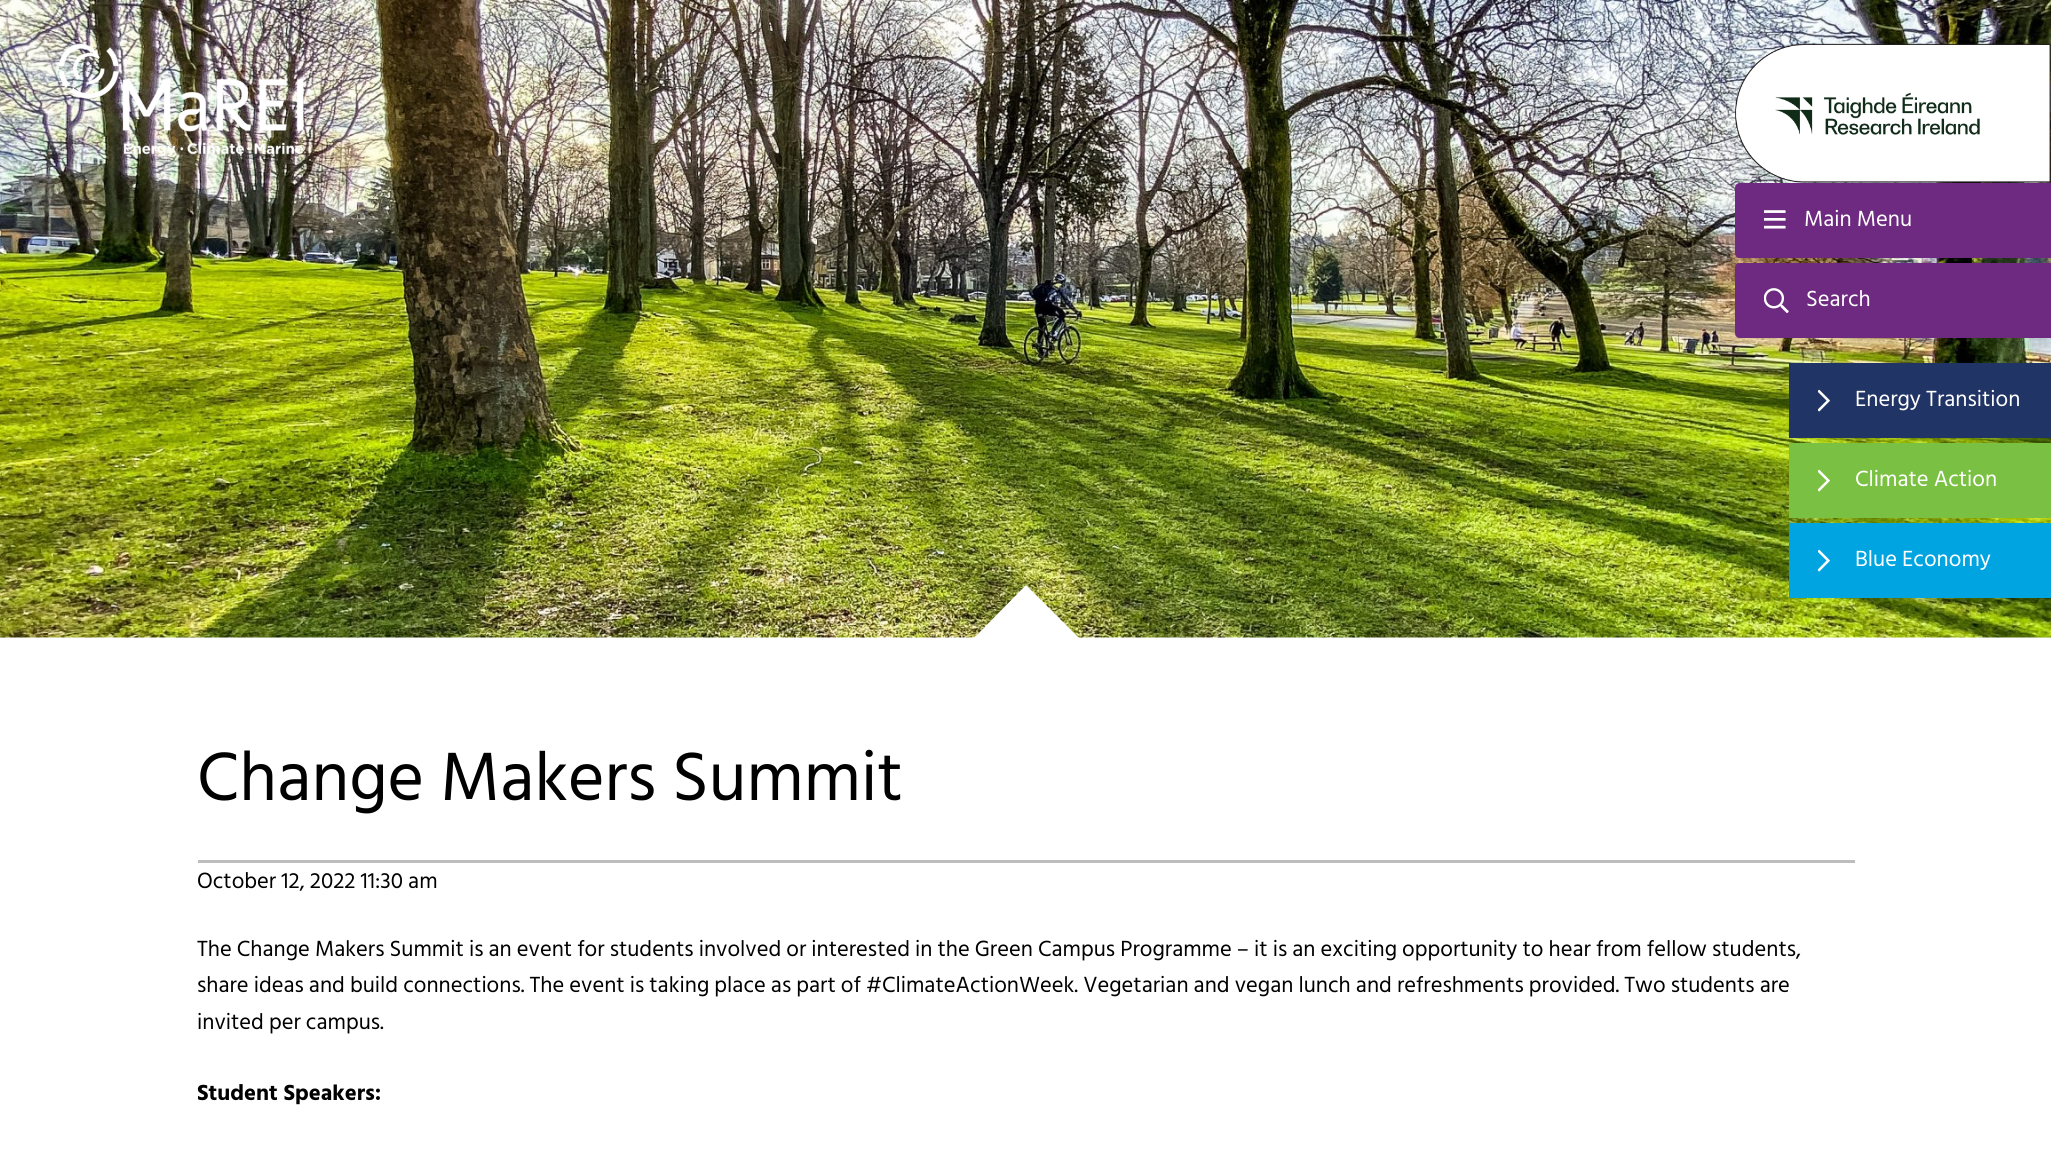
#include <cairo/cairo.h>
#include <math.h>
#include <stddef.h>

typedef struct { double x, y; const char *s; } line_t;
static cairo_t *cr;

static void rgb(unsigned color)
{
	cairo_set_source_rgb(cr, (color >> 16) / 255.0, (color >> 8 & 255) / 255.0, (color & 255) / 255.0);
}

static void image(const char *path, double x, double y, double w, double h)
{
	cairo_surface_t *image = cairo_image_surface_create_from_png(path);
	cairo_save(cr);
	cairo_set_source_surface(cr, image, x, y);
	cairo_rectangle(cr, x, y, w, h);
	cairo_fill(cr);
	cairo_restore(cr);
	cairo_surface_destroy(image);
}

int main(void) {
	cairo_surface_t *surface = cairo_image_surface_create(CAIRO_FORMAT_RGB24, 2051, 1154);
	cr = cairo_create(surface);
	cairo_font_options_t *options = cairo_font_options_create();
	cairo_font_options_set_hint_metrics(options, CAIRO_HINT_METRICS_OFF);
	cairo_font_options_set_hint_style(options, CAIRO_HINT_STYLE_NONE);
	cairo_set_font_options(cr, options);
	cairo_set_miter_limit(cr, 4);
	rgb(0xffffff);
	cairo_paint(cr);
	image("img/8.png", 0, 0, 2051, 638);
	image("img/1.png", 58, 43, 246, 114);
	image("img/2.png", 1735, 43, 316, 140);
	rgb(0x6d2a80);
	cairo_new_path(cr);
	cairo_move_to(cr, 1740, 183);
	cairo_line_to(cr, 2051, 183);
	cairo_line_to(cr, 2051, 258);
	cairo_line_to(cr, 1740, 258);
	cairo_curve_to(cr, 1737, 258, 1735, 256, 1735, 253);
	cairo_line_to(cr, 1735, 188);
	cairo_curve_to(cr, 1735, 185, 1737, 183, 1740, 183);
	cairo_close_path(cr);
	cairo_fill(cr);
	image("img/3.png", 1764, 210, 22, 19);
	cairo_new_path(cr);
	cairo_move_to(cr, 1740, 263);
	cairo_line_to(cr, 2051, 263);
	cairo_line_to(cr, 2051, 338);
	cairo_line_to(cr, 1740, 338);
	cairo_curve_to(cr, 1737, 338, 1735, 336, 1735, 333);
	cairo_line_to(cr, 1735, 268);
	cairo_curve_to(cr, 1735, 265, 1737, 263, 1740, 263);
	cairo_close_path(cr);
	cairo_fill(cr);
	image("img/4.png", 1764, 288, 25, 25);
	rgb(0x213466);
	cairo_rectangle(cr, 1789, 363, 262, 75);
	cairo_fill(cr);
	image("img/5.png", 1818, 389, 12, 23);
	rgb(0x7ac143);
	cairo_rectangle(cr, 1789, 443, 262, 75);
	cairo_fill(cr);
	image("img/6.png", 1818, 469, 12, 23);
	rgb(0x00a4e0);
	cairo_rectangle(cr, 1789, 523, 262, 75);
	cairo_fill(cr);
	image("img/7.png", 1818, 549, 12, 23);
	rgb(0xffffff);
	cairo_new_path(cr);
	cairo_move_to(cr, 1079, 638);
	cairo_line_to(cr, 974, 638);
	cairo_line_to(cr, 1026, 585);
	cairo_close_path(cr);
	cairo_fill(cr);
	rgb(0xbdbdbd);
	cairo_rectangle(cr, 198, 860, 1657, 3);
	cairo_fill(cr);
	cairo_select_font_face(cr, "Hind Siliguri", CAIRO_FONT_SLANT_NORMAL, CAIRO_FONT_WEIGHT_NORMAL);
	cairo_set_font_size(cr, 22.5);
	rgb(0xffffff);
	{
		static const line_t items[] = {
			{1804, 226, "Main Menu"},
			{1806, 306, "Search"},
			{1855, 406, "Energy Transition"},
			{1855, 486, "Climate Action"},
			{1855, 566, "Blue Economy"},
		};
		for (size_t i = 0; i < sizeof items / sizeof *items; i++) {
			cairo_move_to(cr, items[i].x, items[i].y);
			cairo_show_text(cr, items[i].s);
		}
	}
	cairo_set_font_size(cr, 70);
	rgb(0x000000);
	cairo_move_to(cr, 197, 800);
	cairo_show_text(cr, "Change Makers Summit");
	cairo_set_font_size(cr, 22.5);
	{
		static const line_t items[] = {
			{197, 888, "October 12, 2022 11:30 am"},
			{197, 956, "The Change Makers Summit is an event for students involved or interested in the Green Campus Programme – it is an exciting opportunity to hear from fellow students,"},
			{197, 992, "share ideas and build connections. The event is taking place as part of #ClimateActionWeek. Vegetarian and vegan lunch and refreshments provided. Two students are"},
			{197, 1029, "invited per campus."},
		};
		for (size_t i = 0; i < sizeof items / sizeof *items; i++) {
			cairo_move_to(cr, items[i].x, items[i].y);
			cairo_show_text(cr, items[i].s);
		}
	}
	cairo_select_font_face(cr, "Hind Siliguri", CAIRO_FONT_SLANT_NORMAL, CAIRO_FONT_WEIGHT_BOLD);
	cairo_move_to(cr, 197, 1100);
	cairo_show_text(cr, "Student Speakers:");
	cairo_surface_write_to_png(surface, "page.png");
	cairo_font_options_destroy(options);
	cairo_destroy(cr);
	cairo_surface_destroy(surface);
	return 0;
}
